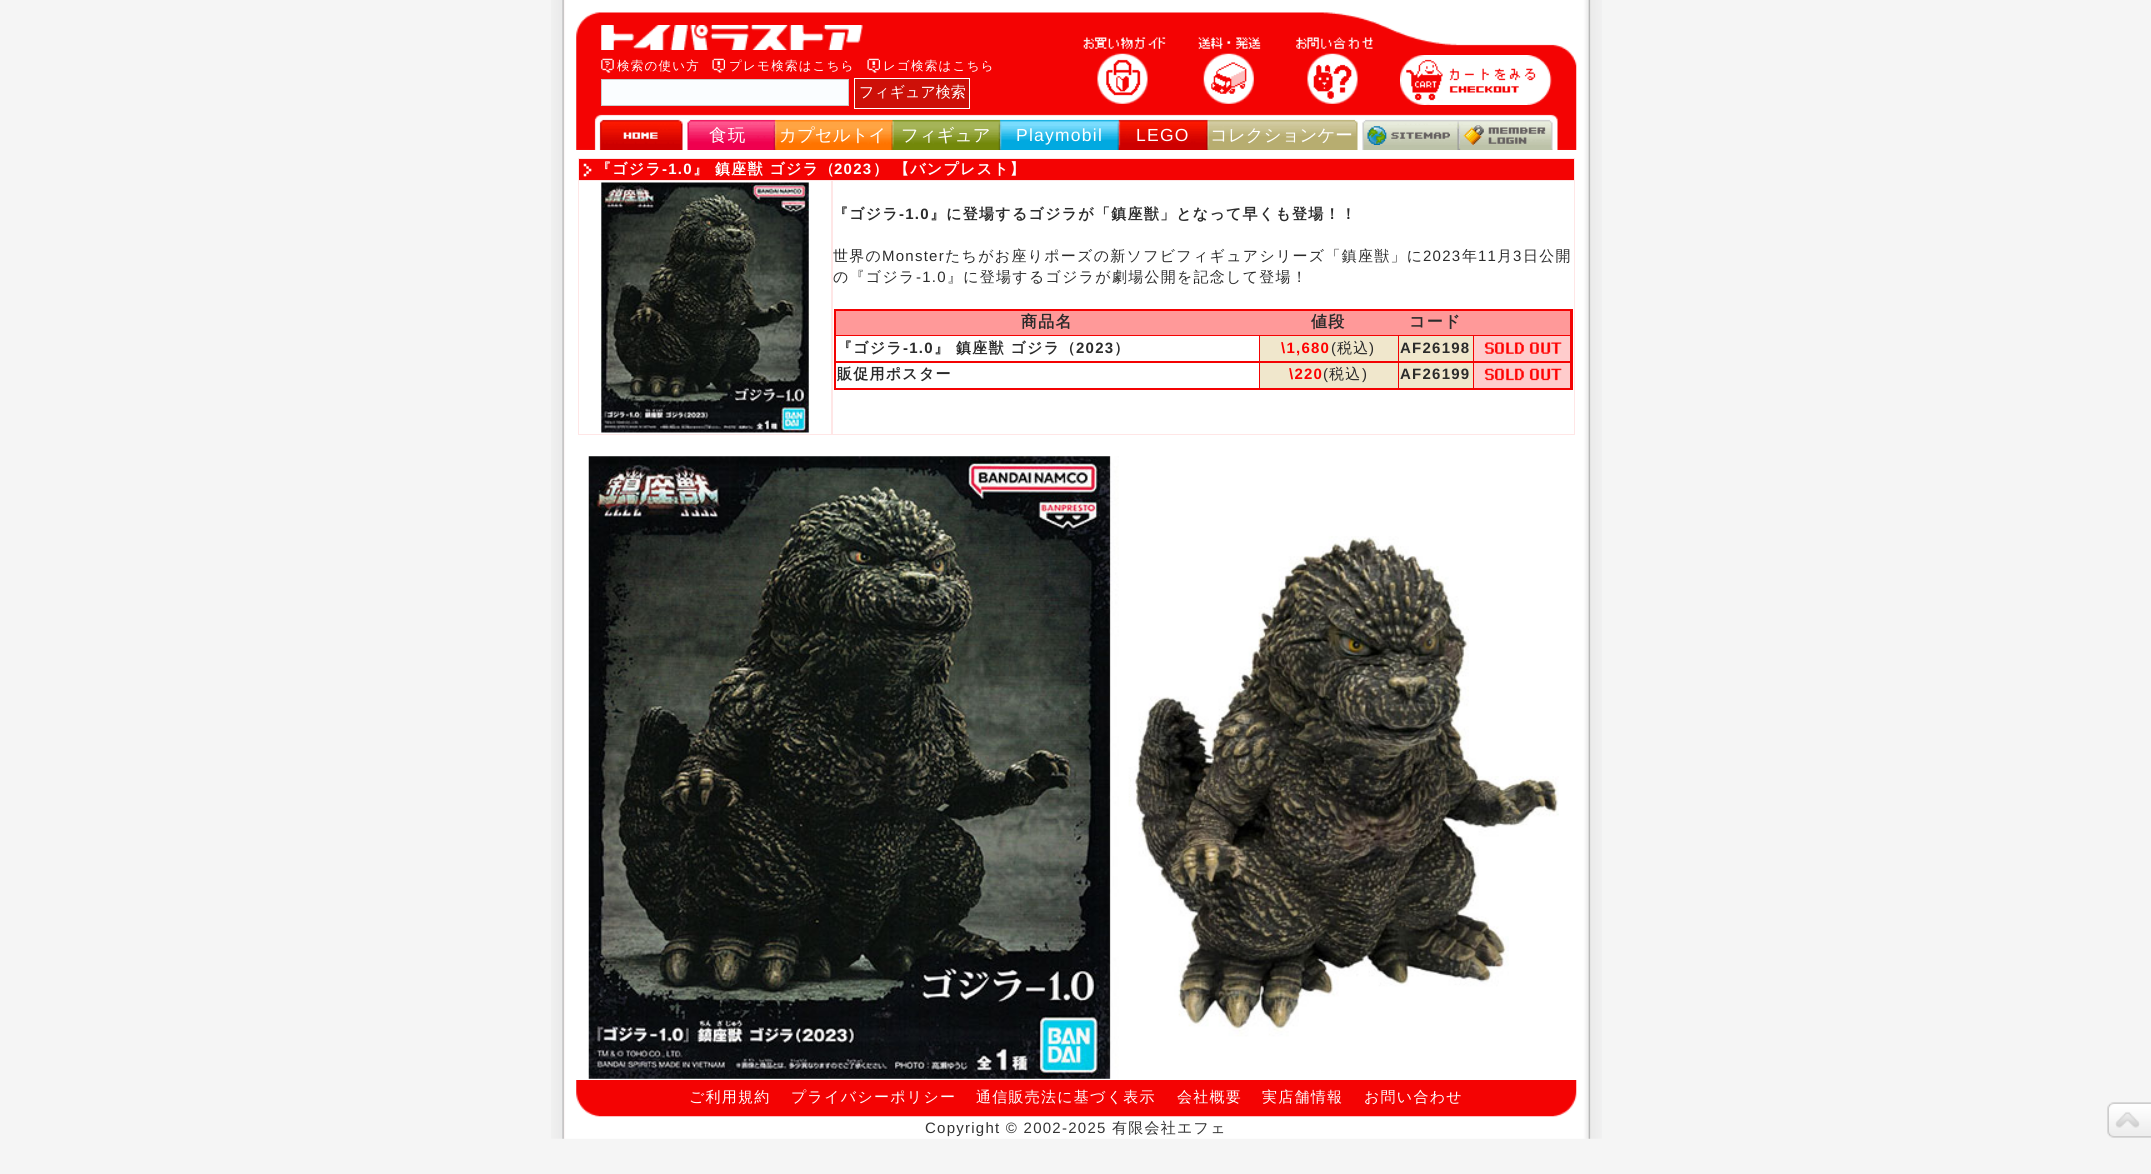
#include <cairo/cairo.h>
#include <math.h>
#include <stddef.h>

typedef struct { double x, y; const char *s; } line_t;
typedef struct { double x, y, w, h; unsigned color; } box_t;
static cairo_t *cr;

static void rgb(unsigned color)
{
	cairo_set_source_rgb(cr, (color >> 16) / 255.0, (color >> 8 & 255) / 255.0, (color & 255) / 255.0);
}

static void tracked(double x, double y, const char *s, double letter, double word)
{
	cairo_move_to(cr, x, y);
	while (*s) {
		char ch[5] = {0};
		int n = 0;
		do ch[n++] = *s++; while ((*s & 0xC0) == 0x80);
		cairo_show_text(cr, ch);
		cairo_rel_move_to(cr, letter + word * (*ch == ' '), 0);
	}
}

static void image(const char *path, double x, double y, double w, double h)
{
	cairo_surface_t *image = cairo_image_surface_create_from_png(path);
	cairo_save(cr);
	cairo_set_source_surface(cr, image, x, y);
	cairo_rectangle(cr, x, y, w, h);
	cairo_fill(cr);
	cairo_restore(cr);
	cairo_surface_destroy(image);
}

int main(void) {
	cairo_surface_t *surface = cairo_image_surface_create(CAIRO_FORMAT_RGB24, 2151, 1174);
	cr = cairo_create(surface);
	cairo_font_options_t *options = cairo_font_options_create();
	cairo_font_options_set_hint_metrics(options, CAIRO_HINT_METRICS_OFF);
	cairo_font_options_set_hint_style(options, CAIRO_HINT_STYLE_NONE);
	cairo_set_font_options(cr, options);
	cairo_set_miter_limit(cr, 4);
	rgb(0xf5f5f5);
	cairo_paint(cr);
	image("img/1.png", 551, 0, 1051, 1139);
	image("img/2.png", 576, 12, 1001, 138);
	image("img/3.png", 601, 25, 262, 25);
	image("img/4.png", 601, 58, 13, 15);
	image("img/5.png", 712, 58, 13, 15);
	image("img/5.png", 867, 58, 13, 15);
	rgb(0xfafdff);
	cairo_rectangle(cr, 601.5, 79.5, 247, 26);
	cairo_fill_preserve(cr);
	rgb(0xcccccc);
	cairo_set_line_width(cr, 1);
	cairo_stroke(cr);
	rgb(0xcd1008);
	cairo_rectangle(cr, 854.5, 78.5, 115, 30);
	cairo_fill_preserve(cr);
	rgb(0xffffff);
	cairo_stroke(cr);
	image("img/6.png", 1083, 37, 83, 67);
	image("img/7.png", 1198, 37, 63, 67);
	image("img/8.png", 1296, 37, 77, 67);
	image("img/9.png", 1400, 55, 152, 50);
	image("img/10.png", 623, 132, 35, 7);
	image("img/11.png", 1367, 126, 83, 19);
	image("img/12.png", 1463, 125, 83, 20);
	rgb(0xffe6e6);
	cairo_rectangle(cr, 578, 158, 997, 277);
	cairo_fill(cr);
	rgb(0xf40303);
	cairo_rectangle(cr, 579, 159, 995, 21);
	cairo_fill(cr);
	image("img/13.png", 583, 163, 9, 14);
	rgb(0xffffff);
	cairo_rectangle(cr, 579, 181, 252, 253);
	cairo_fill(cr);
	image("img/14.png", 600, 182, 210, 251);
	{
		static const box_t items[] = {
			{833, 181, 741, 253, 0xffffff},
			{834, 309, 739, 81, 0xf40303},
			{836, 311, 734, 24, 0xff9999},
			{836, 336, 423, 25, 0xffffff},
			{1260, 336, 138, 25, 0xf0e7cc},
			{1399, 336, 74, 25, 0xf0e7cc},
			{1474, 336, 96, 25, 0xffcccc},
		};
		for (size_t i = 0; i < sizeof items / sizeof *items; i++) {
			rgb(items[i].color);
			cairo_rectangle(cr, items[i].x, items[i].y, items[i].w, items[i].h);
			cairo_fill(cr);
		}
	}
	image("img/15.png", 1484, 342, 78, 12);
	{
		static const box_t items[] = {
			{836, 363, 423, 25, 0xffffff},
			{1260, 363, 138, 25, 0xf0e7cc},
			{1399, 363, 74, 25, 0xf0e7cc},
			{1474, 363, 96, 25, 0xffcccc},
		};
		for (size_t i = 0; i < sizeof items / sizeof *items; i++) {
			rgb(items[i].color);
			cairo_rectangle(cr, items[i].x, items[i].y, items[i].w, items[i].h);
			cairo_fill(cr);
		}
	}
	image("img/16.png", 1484, 368, 78, 13);
	image("img/17.png", 588, 456, 971, 623);
	image("img/18.png", 576, 1080, 1001, 37);
	image("img/19.png", 2107, 1102, 44, 36);
	cairo_select_font_face(cr, "WenQuanYi Zen Hei Medium", CAIRO_FONT_SLANT_NORMAL, CAIRO_FONT_WEIGHT_NORMAL);
	cairo_set_font_size(cr, 12.5);
	rgb(0xffffff);
	{
		static const line_t items[] = {
			{617, 70, "検索の使い方"},
			{729, 70, "プレモ検索はこちら"},
			{883, 70, "レゴ検索はこちら"},
		};
		for (size_t i = 0; i < sizeof items / sizeof *items; i++) {
			tracked(items[i].x, items[i].y, items[i].s, 1.25, 0);
		}
	}
	cairo_set_font_size(cr, 15);
	cairo_move_to(cr, 859, 97);
	cairo_show_text(cr, "フィギュア検索");
	cairo_set_font_size(cr, 17.5);
	tracked(709, 141, "食玩", 1.25, 0);
	cairo_move_to(cr, 779, 141);
	cairo_show_text(cr, "カプセルトイ");
	cairo_move_to(cr, 901, 141);
	cairo_show_text(cr, "フィギュア");
	cairo_select_font_face(cr, "Liberation Sans", CAIRO_FONT_SLANT_NORMAL, CAIRO_FONT_WEIGHT_NORMAL);
	tracked(1016, 141, "Playmobil", 1.25, 0);
	tracked(1136, 141, "LEGO", 1.25, 0);
	cairo_select_font_face(cr, "WenQuanYi Zen Hei Medium", CAIRO_FONT_SLANT_NORMAL, CAIRO_FONT_WEIGHT_NORMAL);
	cairo_move_to(cr, 1210, 141);
	cairo_show_text(cr, "コレクションケー");
	cairo_select_font_face(cr, "WenQuanYi Zen Hei", CAIRO_FONT_SLANT_NORMAL, CAIRO_FONT_WEIGHT_BOLD);
	cairo_set_font_size(cr, 15);
	tracked(596, 174, "『ゴジラ", 1.25, 0);
	cairo_select_font_face(cr, "Liberation Sans", CAIRO_FONT_SLANT_NORMAL, CAIRO_FONT_WEIGHT_BOLD);
	tracked(662, 174, "-1.0", 1.25, 0);
	cairo_select_font_face(cr, "WenQuanYi Zen Hei", CAIRO_FONT_SLANT_NORMAL, CAIRO_FONT_WEIGHT_BOLD);
	tracked(693, 174, "』 鎮座獣 ゴジラ（", 1.25, 0);
	cairo_select_font_face(cr, "Liberation Sans", CAIRO_FONT_SLANT_NORMAL, CAIRO_FONT_WEIGHT_BOLD);
	tracked(834, 174, "2023", 1.25, 0);
	cairo_select_font_face(cr, "WenQuanYi Zen Hei", CAIRO_FONT_SLANT_NORMAL, CAIRO_FONT_WEIGHT_BOLD);
	tracked(873, 174, "）", 1.25, 0);
	tracked(894, 174, "【バンプレスト】", 1.25, 0);
	rgb(0x2b2b2b);
	tracked(833, 219, "『ゴジラ", 1.25, 0);
	cairo_select_font_face(cr, "Liberation Sans", CAIRO_FONT_SLANT_NORMAL, CAIRO_FONT_WEIGHT_BOLD);
	tracked(899, 219, "-1.0", 1.25, 0);
	cairo_select_font_face(cr, "WenQuanYi Zen Hei", CAIRO_FONT_SLANT_NORMAL, CAIRO_FONT_WEIGHT_BOLD);
	tracked(930, 219, "』に登場するゴジラが「鎮座獣」となって早くも登場！！", 1.25, 0);
	cairo_select_font_face(cr, "WenQuanYi Zen Hei Medium", CAIRO_FONT_SLANT_NORMAL, CAIRO_FONT_WEIGHT_NORMAL);
	tracked(833, 261, "世界の", 1.25, 0);
	cairo_select_font_face(cr, "Liberation Sans", CAIRO_FONT_SLANT_NORMAL, CAIRO_FONT_WEIGHT_NORMAL);
	tracked(882, 261, "Monster", 1.25, 0);
	cairo_select_font_face(cr, "WenQuanYi Zen Hei Medium", CAIRO_FONT_SLANT_NORMAL, CAIRO_FONT_WEIGHT_NORMAL);
	tracked(945, 261, "たちがお座りポーズの新ソフビフィギュアシリーズ「鎮座獣」に", 1.25, 0);
	cairo_select_font_face(cr, "Liberation Sans", CAIRO_FONT_SLANT_NORMAL, CAIRO_FONT_WEIGHT_NORMAL);
	tracked(1423, 261, "2023", 1.25, 0);
	cairo_select_font_face(cr, "WenQuanYi Zen Hei Medium", CAIRO_FONT_SLANT_NORMAL, CAIRO_FONT_WEIGHT_NORMAL);
	tracked(1462, 261, "年", 1.25, 0);
	cairo_select_font_face(cr, "Liberation Sans", CAIRO_FONT_SLANT_NORMAL, CAIRO_FONT_WEIGHT_NORMAL);
	tracked(1478, 261, "11", 1.25, 0);
	cairo_select_font_face(cr, "WenQuanYi Zen Hei Medium", CAIRO_FONT_SLANT_NORMAL, CAIRO_FONT_WEIGHT_NORMAL);
	tracked(1497, 261, "月", 1.25, 0);
	cairo_select_font_face(cr, "Liberation Sans", CAIRO_FONT_SLANT_NORMAL, CAIRO_FONT_WEIGHT_NORMAL);
	tracked(1513, 261, "3", 1.25, 0);
	cairo_select_font_face(cr, "WenQuanYi Zen Hei Medium", CAIRO_FONT_SLANT_NORMAL, CAIRO_FONT_WEIGHT_NORMAL);
	tracked(1523, 261, "日公開", 1.25, 0);
	tracked(833, 282, "の『ゴジラ", 1.25, 0);
	cairo_select_font_face(cr, "Liberation Sans", CAIRO_FONT_SLANT_NORMAL, CAIRO_FONT_WEIGHT_NORMAL);
	tracked(916, 282, "-1.0", 1.25, 0);
	cairo_select_font_face(cr, "WenQuanYi Zen Hei Medium", CAIRO_FONT_SLANT_NORMAL, CAIRO_FONT_WEIGHT_NORMAL);
	tracked(947, 282, "』に登場するゴジラが劇場公開を記念して登場！", 1.25, 0);
	cairo_select_font_face(cr, "WenQuanYi Zen Hei", CAIRO_FONT_SLANT_NORMAL, CAIRO_FONT_WEIGHT_BOLD);
	cairo_set_font_size(cr, 16);
	{
		static const line_t items[] = {
			{1021, 327, "商品名"},
			{1311, 327, "値段"},
			{1409, 327, "コード"},
		};
		for (size_t i = 0; i < sizeof items / sizeof *items; i++) {
			tracked(items[i].x, items[i].y, items[i].s, 1.25, 0);
		}
	}
	cairo_set_font_size(cr, 15);
	tracked(837, 353, "『ゴジラ", 1.25, 0);
	cairo_select_font_face(cr, "Liberation Sans", CAIRO_FONT_SLANT_NORMAL, CAIRO_FONT_WEIGHT_BOLD);
	tracked(903, 353, "-1.0", 1.25, 0);
	cairo_select_font_face(cr, "WenQuanYi Zen Hei", CAIRO_FONT_SLANT_NORMAL, CAIRO_FONT_WEIGHT_BOLD);
	tracked(934, 353, "』 鎮座獣 ゴジラ（", 1.25, 0);
	cairo_select_font_face(cr, "Liberation Sans", CAIRO_FONT_SLANT_NORMAL, CAIRO_FONT_WEIGHT_BOLD);
	tracked(1076, 353, "2023", 1.25, 0);
	cairo_select_font_face(cr, "WenQuanYi Zen Hei", CAIRO_FONT_SLANT_NORMAL, CAIRO_FONT_WEIGHT_BOLD);
	tracked(1114, 353, "）", 1.25, 0);
	cairo_select_font_face(cr, "Liberation Sans", CAIRO_FONT_SLANT_NORMAL, CAIRO_FONT_WEIGHT_BOLD);
	rgb(0xff0000);
	tracked(1281, 353, "\\1,680", 1.25, 0);
	cairo_select_font_face(cr, "Liberation Sans", CAIRO_FONT_SLANT_NORMAL, CAIRO_FONT_WEIGHT_NORMAL);
	rgb(0x2b2b2b);
	tracked(1331, 353, "(", 1.25, 0);
	cairo_select_font_face(cr, "WenQuanYi Zen Hei Medium", CAIRO_FONT_SLANT_NORMAL, CAIRO_FONT_WEIGHT_NORMAL);
	tracked(1337, 353, "税込", 1.25, 0);
	cairo_select_font_face(cr, "Liberation Sans", CAIRO_FONT_SLANT_NORMAL, CAIRO_FONT_WEIGHT_NORMAL);
	tracked(1369, 353, ")", 1.25, 0);
	cairo_select_font_face(cr, "Liberation Sans", CAIRO_FONT_SLANT_NORMAL, CAIRO_FONT_WEIGHT_BOLD);
	tracked(1400, 353, "AF26198", 1.25, 0);
	cairo_select_font_face(cr, "WenQuanYi Zen Hei", CAIRO_FONT_SLANT_NORMAL, CAIRO_FONT_WEIGHT_BOLD);
	tracked(837, 379, "販促用ポスター", 1.25, 0);
	cairo_select_font_face(cr, "Liberation Sans", CAIRO_FONT_SLANT_NORMAL, CAIRO_FONT_WEIGHT_BOLD);
	rgb(0xff0000);
	tracked(1289, 379, "\\220", 1.25, 0);
	cairo_select_font_face(cr, "Liberation Sans", CAIRO_FONT_SLANT_NORMAL, CAIRO_FONT_WEIGHT_NORMAL);
	rgb(0x2b2b2b);
	tracked(1323, 379, "(", 1.25, 0);
	cairo_select_font_face(cr, "WenQuanYi Zen Hei Medium", CAIRO_FONT_SLANT_NORMAL, CAIRO_FONT_WEIGHT_NORMAL);
	tracked(1329, 379, "税込", 1.25, 0);
	cairo_select_font_face(cr, "Liberation Sans", CAIRO_FONT_SLANT_NORMAL, CAIRO_FONT_WEIGHT_NORMAL);
	tracked(1362, 379, ")", 1.25, 0);
	cairo_select_font_face(cr, "Liberation Sans", CAIRO_FONT_SLANT_NORMAL, CAIRO_FONT_WEIGHT_BOLD);
	tracked(1400, 379, "AF26199", 1.25, 0);
	cairo_select_font_face(cr, "WenQuanYi Zen Hei Medium", CAIRO_FONT_SLANT_NORMAL, CAIRO_FONT_WEIGHT_NORMAL);
	rgb(0xffffff);
	{
		static const line_t items[] = {
			{689, 1102, "ご利用規約"},
			{791, 1102, "プライバシーポリシー"},
			{976, 1102, "通信販売法に基づく表示"},
			{1177, 1102, "会社概要"},
			{1262, 1102, "実店舗情報"},
			{1364, 1102, "お問い合わせ"},
		};
		for (size_t i = 0; i < sizeof items / sizeof *items; i++) {
			tracked(items[i].x, items[i].y, items[i].s, 1.25, 0);
		}
	}
	cairo_select_font_face(cr, "Liberation Sans", CAIRO_FONT_SLANT_NORMAL, CAIRO_FONT_WEIGHT_NORMAL);
	rgb(0x333333);
	tracked(925, 1133, "Copyright © 2002-2025", 1.25, 0);
	cairo_select_font_face(cr, "WenQuanYi Zen Hei Medium", CAIRO_FONT_SLANT_NORMAL, CAIRO_FONT_WEIGHT_NORMAL);
	tracked(1112, 1133, "有限会社エフェ", 1.25, 0);
	cairo_surface_write_to_png(surface, "page.png");
	cairo_font_options_destroy(options);
	cairo_destroy(cr);
	cairo_surface_destroy(surface);
	return 0;
}
